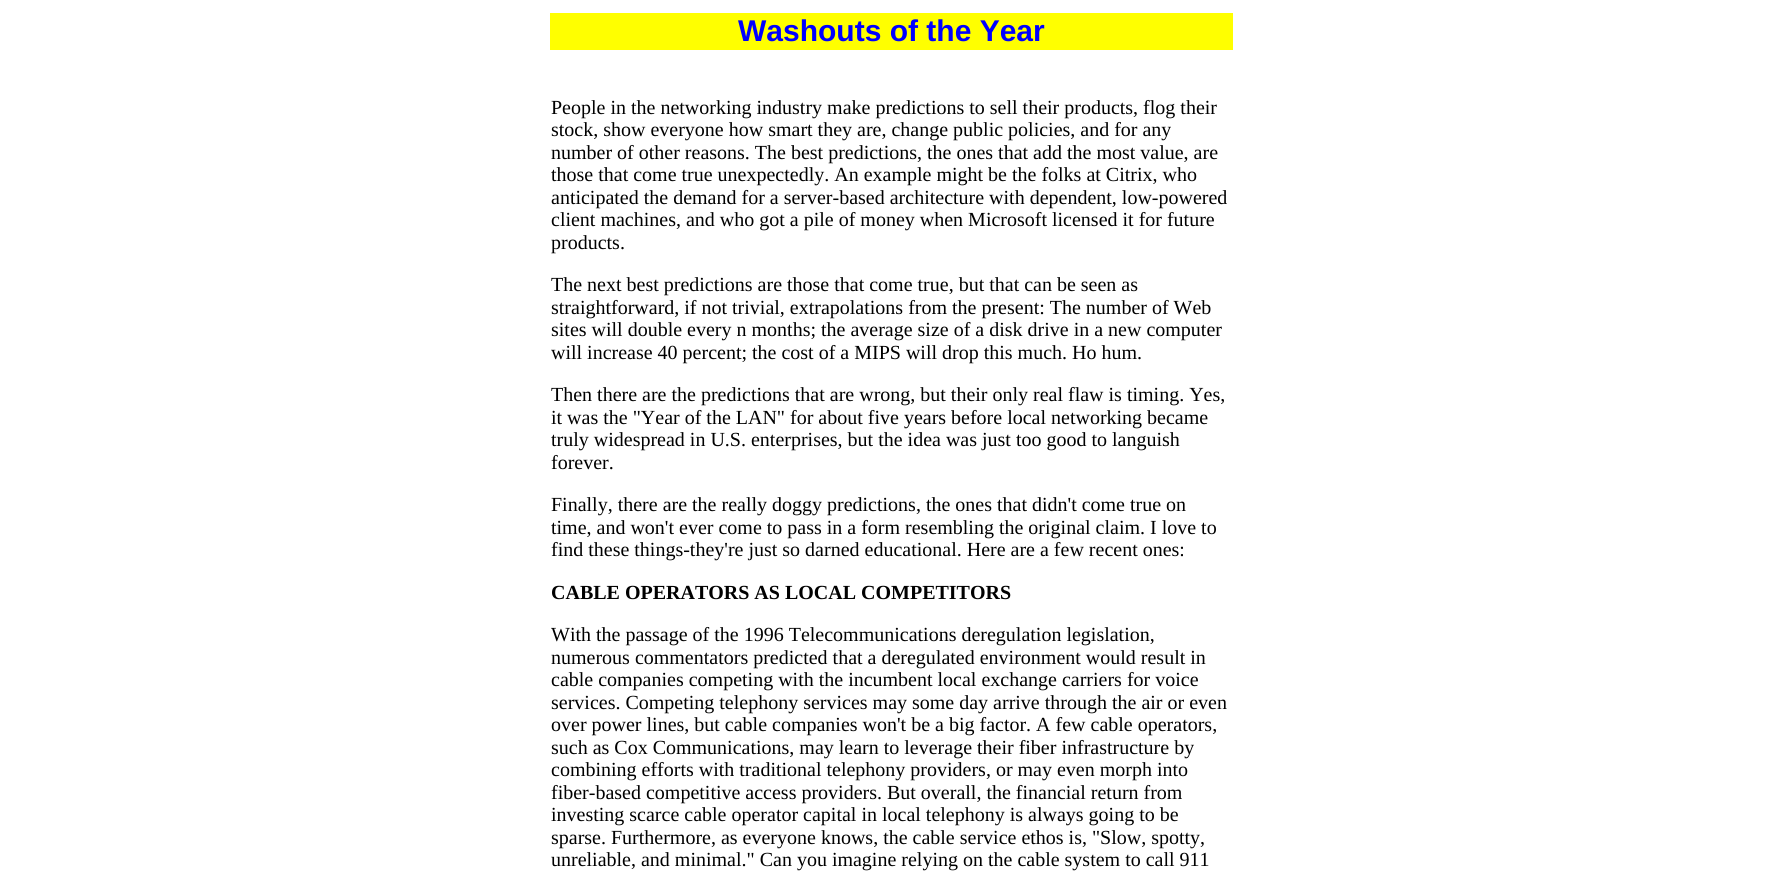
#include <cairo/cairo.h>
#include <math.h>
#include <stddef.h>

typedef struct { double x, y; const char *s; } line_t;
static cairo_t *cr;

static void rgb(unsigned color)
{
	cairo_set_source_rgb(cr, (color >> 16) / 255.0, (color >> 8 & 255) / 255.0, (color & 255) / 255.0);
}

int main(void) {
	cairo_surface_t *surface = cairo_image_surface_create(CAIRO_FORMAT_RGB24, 1782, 874);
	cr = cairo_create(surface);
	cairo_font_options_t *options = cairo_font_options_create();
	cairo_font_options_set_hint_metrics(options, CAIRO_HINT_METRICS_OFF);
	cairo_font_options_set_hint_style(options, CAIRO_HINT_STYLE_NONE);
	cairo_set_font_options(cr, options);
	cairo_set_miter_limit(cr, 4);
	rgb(0xffffff);
	cairo_paint(cr);
	rgb(0xffff00);
	cairo_rectangle(cr, 550, 13, 683, 37);
	cairo_fill(cr);
	cairo_select_font_face(cr, "Liberation Sans", CAIRO_FONT_SLANT_NORMAL, CAIRO_FONT_WEIGHT_BOLD);
	cairo_set_font_size(cr, 30);
	rgb(0x0000ff);
	cairo_move_to(cr, 738, 41);
	cairo_show_text(cr, "Washouts of the Year");
	cairo_select_font_face(cr, "Liberation Serif", CAIRO_FONT_SLANT_NORMAL, CAIRO_FONT_WEIGHT_NORMAL);
	cairo_set_font_size(cr, 20);
	rgb(0x000000);
	{
		static const line_t items[] = {
			{551, 114, "People in the networking industry make predictions to sell their products, flog their"},
			{551, 136, "stock, show everyone how smart they are, change public policies, and for any"},
			{551, 159, "number of other reasons. The best predictions, the ones that add the most value, are"},
			{551, 181, "those that come true unexpectedly. An example might be the folks at Citrix, who"},
			{551, 204, "anticipated the demand for a server-based architecture with dependent, low-powered"},
			{551, 226, "client machines, and who got a pile of money when Microsoft licensed it for future"},
			{551, 249, "products."},
			{551, 291, "The next best predictions are those that come true, but that can be seen as"},
			{551, 314, "straightforward, if not trivial, extrapolations from the present: The number of Web"},
			{551, 336, "sites will double every n months; the average size of a disk drive in a new computer"},
			{551, 359, "will increase 40 percent; the cost of a MIPS will drop this much. Ho hum."},
			{551, 401, "Then there are the predictions that are wrong, but their only real flaw is timing. Yes,"},
			{551, 424, "it was the \"Year of the LAN\" for about five years before local networking became"},
			{551, 446, "truly widespread in U.S. enterprises, but the idea was just too good to languish"},
			{551, 469, "forever."},
			{551, 511, "Finally, there are the really doggy predictions, the ones that didn't come true on"},
			{551, 534, "time, and won't ever come to pass in a form resembling the original claim. I love to"},
			{551, 556, "find these things-they're just so darned educational. Here are a few recent ones:"},
		};
		for (size_t i = 0; i < sizeof items / sizeof *items; i++) {
			cairo_move_to(cr, items[i].x, items[i].y);
			cairo_show_text(cr, items[i].s);
		}
	}
	cairo_select_font_face(cr, "Liberation Serif", CAIRO_FONT_SLANT_NORMAL, CAIRO_FONT_WEIGHT_BOLD);
	cairo_move_to(cr, 551, 599);
	cairo_show_text(cr, "CABLE OPERATORS AS LOCAL COMPETITORS");
	cairo_select_font_face(cr, "Liberation Serif", CAIRO_FONT_SLANT_NORMAL, CAIRO_FONT_WEIGHT_NORMAL);
	{
		static const line_t items[] = {
			{551, 641, "With the passage of the 1996 Telecommunications deregulation legislation,"},
			{551, 664, "numerous commentators predicted that a deregulated environment would result in"},
			{551, 686, "cable companies competing with the incumbent local exchange carriers for voice"},
			{551, 709, "services. Competing telephony services may some day arrive through the air or even"},
			{551, 731, "over power lines, but cable companies won't be a big factor. A few cable operators,"},
			{551, 754, "such as Cox Communications, may learn to leverage their fiber infrastructure by"},
			{551, 776, "combining efforts with traditional telephony providers, or may even morph into"},
			{551, 799, "fiber-based competitive access providers. But overall, the financial return from"},
			{551, 821, "investing scarce cable operator capital in local telephony is always going to be"},
			{551, 844, "sparse. Furthermore, as everyone knows, the cable service ethos is, \"Slow, spotty,"},
			{551, 866, "unreliable, and minimal.\" Can you imagine relying on the cable system to call 911"},
		};
		for (size_t i = 0; i < sizeof items / sizeof *items; i++) {
			cairo_move_to(cr, items[i].x, items[i].y);
			cairo_show_text(cr, items[i].s);
		}
	}
	cairo_surface_write_to_png(surface, "page.png");
	cairo_font_options_destroy(options);
	cairo_destroy(cr);
	cairo_surface_destroy(surface);
	return 0;
}
